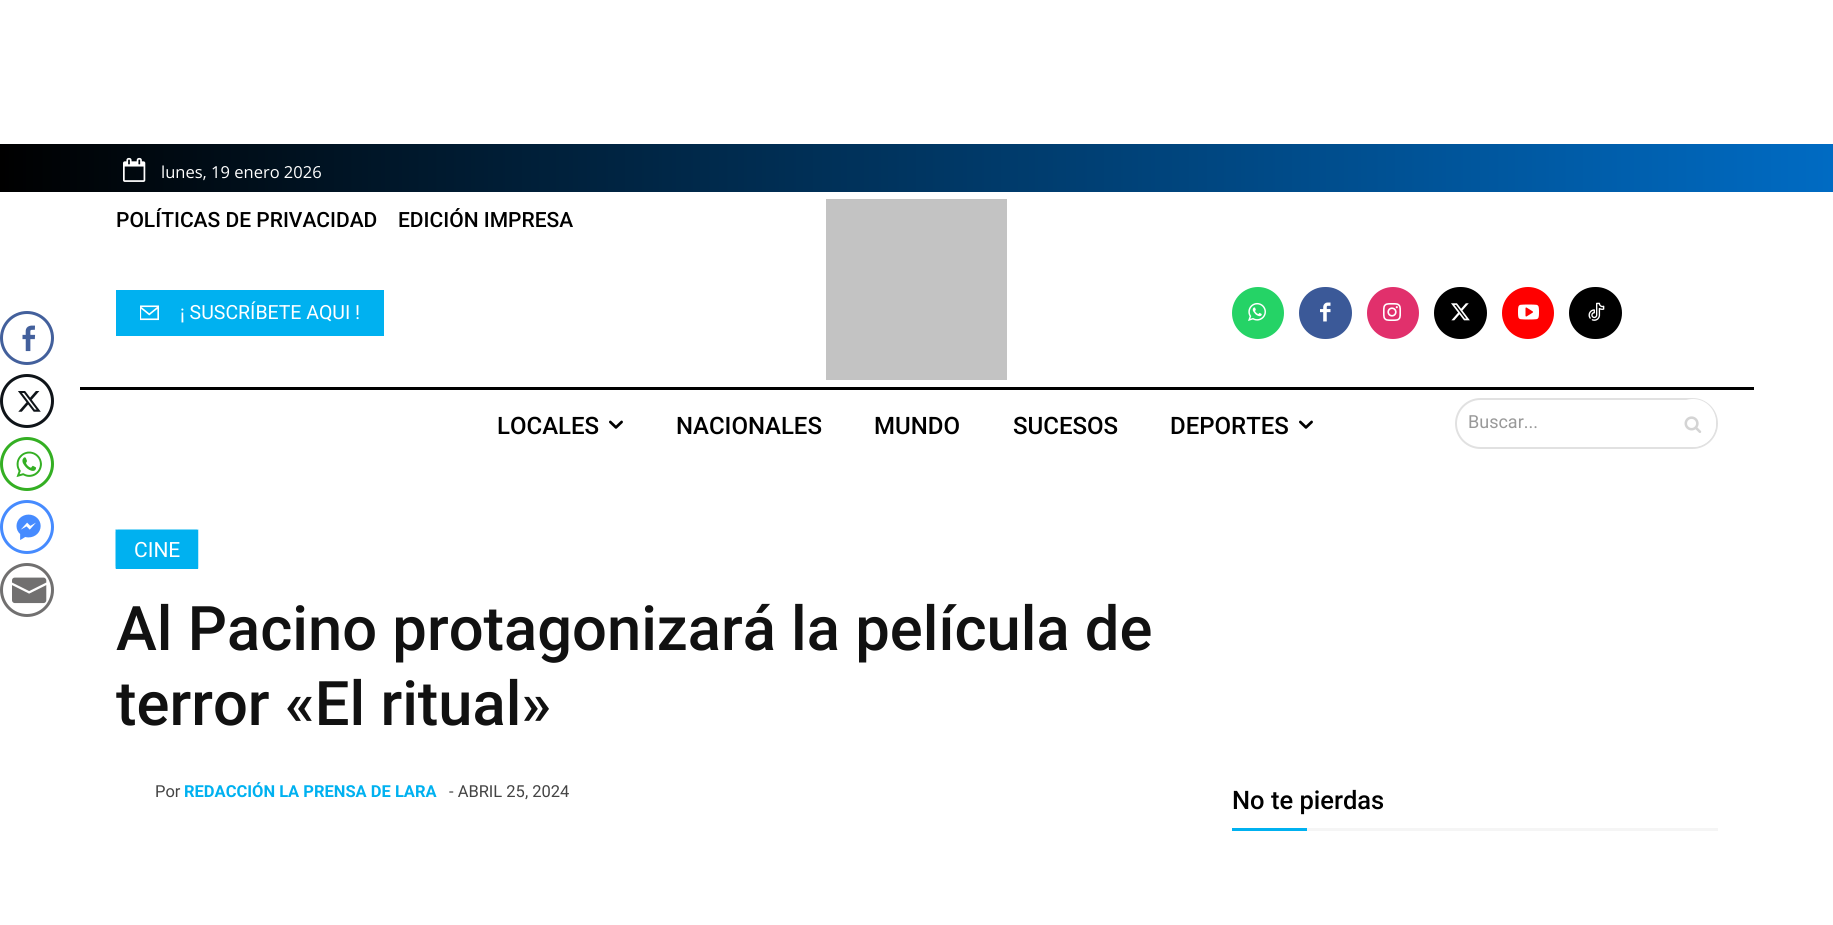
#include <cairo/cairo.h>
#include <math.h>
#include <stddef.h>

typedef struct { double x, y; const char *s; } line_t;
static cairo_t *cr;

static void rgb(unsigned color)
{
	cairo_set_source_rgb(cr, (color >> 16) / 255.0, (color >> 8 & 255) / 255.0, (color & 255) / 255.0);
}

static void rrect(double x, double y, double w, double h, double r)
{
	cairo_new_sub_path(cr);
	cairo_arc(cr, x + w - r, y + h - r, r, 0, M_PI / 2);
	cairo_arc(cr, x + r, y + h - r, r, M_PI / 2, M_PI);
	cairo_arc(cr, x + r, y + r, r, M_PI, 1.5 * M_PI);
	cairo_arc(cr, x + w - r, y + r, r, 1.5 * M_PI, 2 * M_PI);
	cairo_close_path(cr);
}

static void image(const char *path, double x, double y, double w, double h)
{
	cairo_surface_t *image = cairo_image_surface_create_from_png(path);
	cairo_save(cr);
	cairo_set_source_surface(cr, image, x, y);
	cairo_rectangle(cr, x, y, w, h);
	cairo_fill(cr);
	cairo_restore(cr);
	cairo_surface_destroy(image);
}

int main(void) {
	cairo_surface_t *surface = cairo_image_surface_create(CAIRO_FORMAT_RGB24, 1833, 925);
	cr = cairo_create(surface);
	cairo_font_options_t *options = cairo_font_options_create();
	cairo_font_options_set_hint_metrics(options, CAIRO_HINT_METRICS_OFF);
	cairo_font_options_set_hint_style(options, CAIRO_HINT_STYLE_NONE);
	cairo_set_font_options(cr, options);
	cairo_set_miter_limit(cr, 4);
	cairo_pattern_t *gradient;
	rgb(0xffffff);
	cairo_paint(cr);
	cairo_arc(cr, 27, 338, 25.5, 0, 2 * M_PI);
	rgb(0x43609c);
	cairo_set_line_width(cr, 3);
	cairo_stroke(cr);
	image("img/1.png", 22, 325, 14, 27);
	cairo_arc(cr, 27, 401, 25.5, 0, 2 * M_PI);
	rgb(0x0f1419);
	cairo_stroke(cr);
	image("img/2.png", 18, 391, 23, 21);
	cairo_arc(cr, 27, 464, 25.5, 0, 2 * M_PI);
	rgb(0x34af23);
	cairo_stroke(cr);
	image("img/3.png", 16, 451, 26, 27);
	cairo_arc(cr, 27, 527, 25.5, 0, 2 * M_PI);
	rgb(0x468bff);
	cairo_stroke(cr);
	image("img/4.png", 16, 514, 25, 26);
	cairo_arc(cr, 27, 590, 25.5, 0, 2 * M_PI);
	rgb(0x717070);
	cairo_stroke(cr);
	image("img/5.png", 12, 577, 35, 27);
	gradient = cairo_pattern_create_linear(1833, 168, 0, 168);
	cairo_pattern_add_color_stop_rgba(gradient, 0, 0, 0.42, 0.765, 1);
	cairo_pattern_add_color_stop_rgba(gradient, 1, 0, 0, 0, 1);
	cairo_set_source(cr, gradient);
	cairo_pattern_destroy(gradient);
	cairo_rectangle(cr, 0, 144, 1833, 48);
	cairo_fill(cr);
	image("img/6.png", 123, 157, 23, 25);
	rgb(0x000000);
	cairo_rectangle(cr, 80, 387, 1674, 3);
	cairo_fill(cr);
	rgb(0x00b1f0);
	cairo_rectangle(cr, 116, 290, 268, 46);
	cairo_fill(cr);
	image("img/7.png", 140, 305, 19, 16);
	rgb(0xc3c3c3);
	cairo_rectangle(cr, 826, 199, 181, 181);
	cairo_fill(cr);
	rgb(0x25d366);
	cairo_arc(cr, 1258, 313, 26, 0, 2 * M_PI);
	cairo_fill(cr);
	image("img/8.png", 1248, 302, 18, 19);
	rgb(0x3b5998);
	rrect(1299, 287, 53, 52, 26);
	cairo_fill(cr);
	image("img/9.png", 1320, 302, 11, 20);
	rgb(0xe1306c);
	cairo_arc(cr, 1393, 313, 26, 0, 2 * M_PI);
	cairo_fill(cr);
	image("img/10.png", 1383, 303, 18, 18);
	rgb(0x000000);
	rrect(1434, 287, 53, 52, 26);
	cairo_fill(cr);
	image("img/11.png", 1451, 303, 19, 18);
	rgb(0xff0000);
	cairo_arc(cr, 1528, 313, 26, 0, 2 * M_PI);
	cairo_fill(cr);
	image("img/12.png", 1518, 304, 21, 16);
	rgb(0x000000);
	rrect(1569, 287, 53, 52, 26);
	cairo_fill(cr);
	image("img/13.png", 1588, 302, 17, 19);
	image("img/14.png", 609, 420, 14, 9);
	image("img/14.png", 1299, 420, 14, 9);
	rrect(1456, 399, 261, 49, 24.5);
	rgb(0xe1e1e1);
	cairo_set_line_width(cr, 2);
	cairo_stroke(cr);
	rgb(0xffffff);
	rrect(1670, 399, 46, 48, 23);
	cairo_fill(cr);
	image("img/15.png", 1684, 416, 18, 17);
	rgb(0x00b1f0);
	cairo_rectangle(cr, 116, 530, 82, 39);
	cairo_fill(cr);
	image("img/16.png", 115, 529, 84, 40);
	cairo_rectangle(cr, 1232, 828, 75, 3);
	cairo_fill(cr);
	rgb(0xf5f5f5);
	cairo_rectangle(cr, 1307, 828, 411, 3);
	cairo_fill(cr);
	cairo_select_font_face(cr, "Open Sans", CAIRO_FONT_SLANT_NORMAL, CAIRO_FONT_WEIGHT_NORMAL);
	cairo_set_font_size(cr, 16.5);
	rgb(0xffffff);
	cairo_move_to(cr, 161, 178);
	cairo_show_text(cr, "lunes, 19 enero 2026");
	cairo_select_font_face(cr, "Roboto Medium", CAIRO_FONT_SLANT_NORMAL, CAIRO_FONT_WEIGHT_NORMAL);
	cairo_set_font_size(cr, 21);
	rgb(0x000000);
	cairo_move_to(cr, 116, 227);
	cairo_show_text(cr, "POLÍTICAS DE PRIVACIDAD");
	cairo_move_to(cr, 398, 227);
	cairo_show_text(cr, "EDICIÓN IMPRESA");
	cairo_select_font_face(cr, "Roboto", CAIRO_FONT_SLANT_NORMAL, CAIRO_FONT_WEIGHT_NORMAL);
	cairo_set_font_size(cr, 19.5);
	rgb(0xffffff);
	cairo_move_to(cr, 180, 319);
	cairo_show_text(cr, "¡ SUSCRÍBETE AQUI !");
	cairo_select_font_face(cr, "Roboto Medium", CAIRO_FONT_SLANT_NORMAL, CAIRO_FONT_WEIGHT_NORMAL);
	cairo_set_font_size(cr, 24);
	rgb(0x000000);
	{
		static const line_t items[] = {
			{497, 434, "LOCALES"},
			{676, 434, "NACIONALES"},
			{874, 434, "MUNDO"},
			{1013, 434, "SUCESOS"},
			{1170, 434, "DEPORTES"},
		};
		for (size_t i = 0; i < sizeof items / sizeof *items; i++) {
			cairo_move_to(cr, items[i].x, items[i].y);
			cairo_show_text(cr, items[i].s);
		}
	}
	cairo_select_font_face(cr, "Roboto", CAIRO_FONT_SLANT_NORMAL, CAIRO_FONT_WEIGHT_NORMAL);
	cairo_set_font_size(cr, 18);
	rgb(0x999999);
	cairo_move_to(cr, 1468, 428);
	cairo_show_text(cr, "Buscar...");
	cairo_set_font_size(cr, 21);
	rgb(0xffffff);
	cairo_move_to(cr, 134, 557);
	cairo_show_text(cr, "CINE");
	cairo_select_font_face(cr, "Roboto Medium", CAIRO_FONT_SLANT_NORMAL, CAIRO_FONT_WEIGHT_NORMAL);
	cairo_set_font_size(cr, 61.5);
	rgb(0x111111);
	cairo_move_to(cr, 116, 650);
	cairo_show_text(cr, "Al Pacino protagonizará la película de");
	cairo_move_to(cr, 116, 725);
	cairo_show_text(cr, "terror «El ritual»");
	cairo_select_font_face(cr, "Roboto", CAIRO_FONT_SLANT_NORMAL, CAIRO_FONT_WEIGHT_NORMAL);
	cairo_set_font_size(cr, 16.5);
	rgb(0x444444);
	cairo_move_to(cr, 155, 797);
	cairo_show_text(cr, "Por");
	cairo_select_font_face(cr, "Roboto", CAIRO_FONT_SLANT_NORMAL, CAIRO_FONT_WEIGHT_BOLD);
	rgb(0x00b1f0);
	cairo_move_to(cr, 184, 797);
	cairo_show_text(cr, "REDACCIÓN LA PRENSA DE LARA");
	cairo_select_font_face(cr, "Roboto", CAIRO_FONT_SLANT_NORMAL, CAIRO_FONT_WEIGHT_NORMAL);
	rgb(0x444444);
	cairo_move_to(cr, 449, 797);
	cairo_show_text(cr, "- ABRIL 25, 2024");
	cairo_select_font_face(cr, "Roboto Medium", CAIRO_FONT_SLANT_NORMAL, CAIRO_FONT_WEIGHT_NORMAL);
	cairo_set_font_size(cr, 25.5);
	rgb(0x000000);
	cairo_move_to(cr, 1232, 809);
	cairo_show_text(cr, "No te pierdas");
	cairo_surface_write_to_png(surface, "page.png");
	cairo_font_options_destroy(options);
	cairo_destroy(cr);
	cairo_surface_destroy(surface);
	return 0;
}
